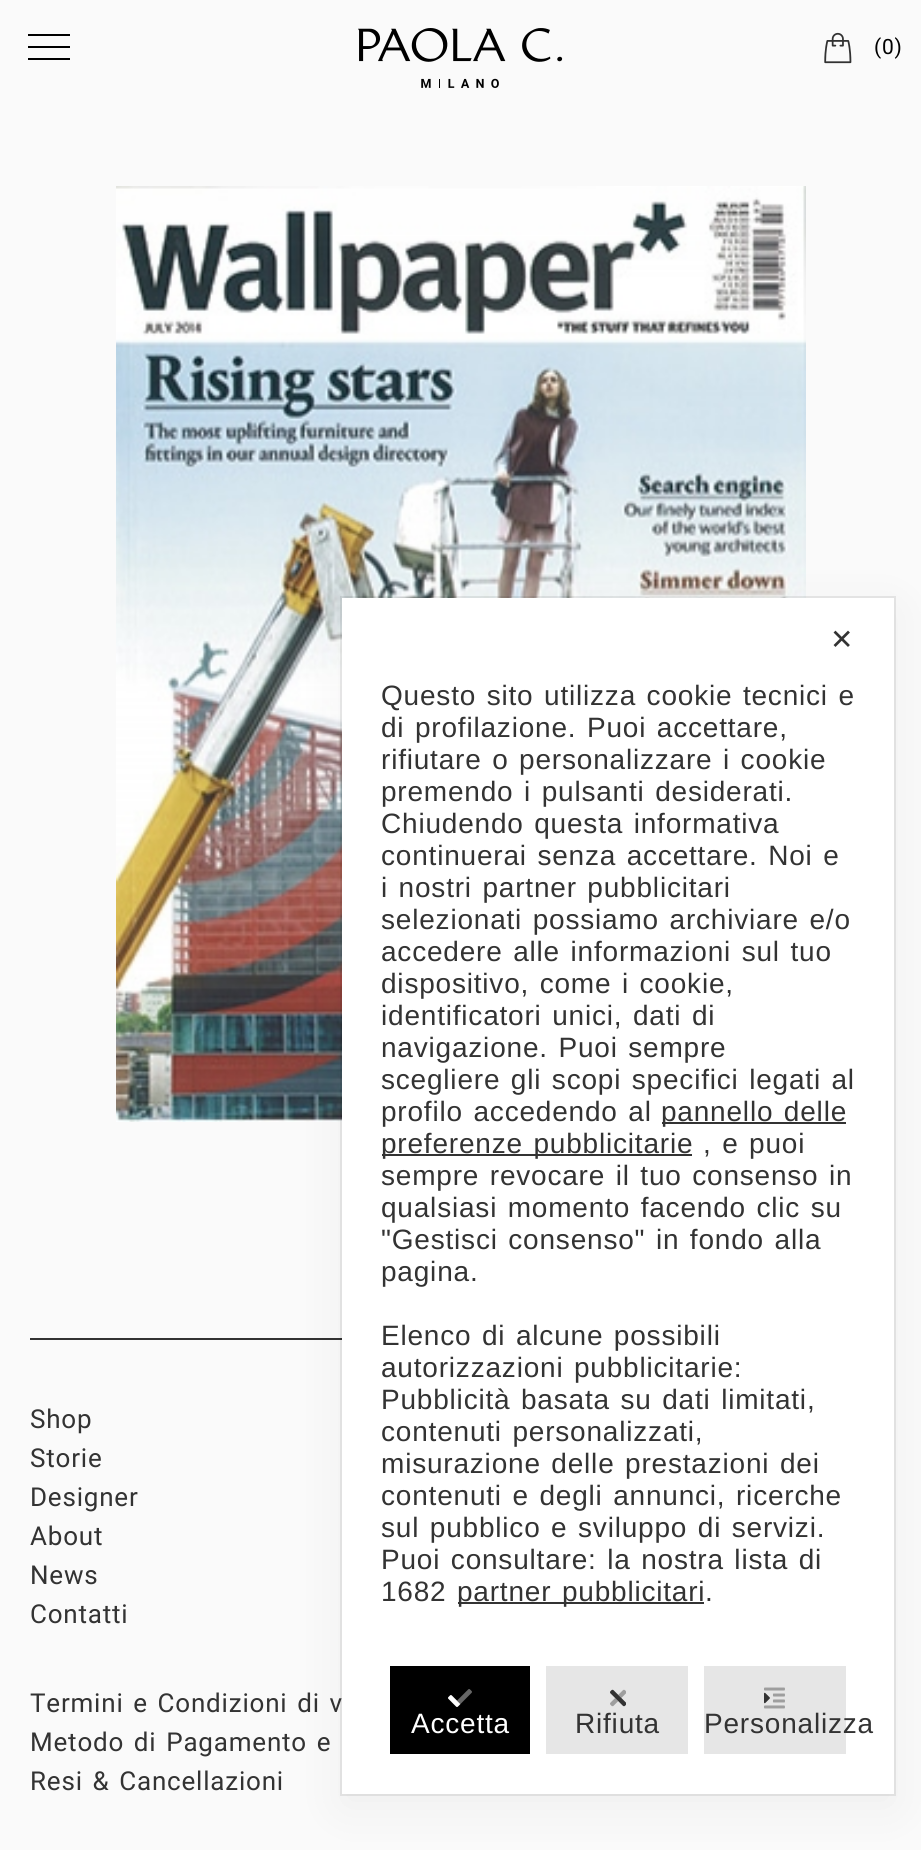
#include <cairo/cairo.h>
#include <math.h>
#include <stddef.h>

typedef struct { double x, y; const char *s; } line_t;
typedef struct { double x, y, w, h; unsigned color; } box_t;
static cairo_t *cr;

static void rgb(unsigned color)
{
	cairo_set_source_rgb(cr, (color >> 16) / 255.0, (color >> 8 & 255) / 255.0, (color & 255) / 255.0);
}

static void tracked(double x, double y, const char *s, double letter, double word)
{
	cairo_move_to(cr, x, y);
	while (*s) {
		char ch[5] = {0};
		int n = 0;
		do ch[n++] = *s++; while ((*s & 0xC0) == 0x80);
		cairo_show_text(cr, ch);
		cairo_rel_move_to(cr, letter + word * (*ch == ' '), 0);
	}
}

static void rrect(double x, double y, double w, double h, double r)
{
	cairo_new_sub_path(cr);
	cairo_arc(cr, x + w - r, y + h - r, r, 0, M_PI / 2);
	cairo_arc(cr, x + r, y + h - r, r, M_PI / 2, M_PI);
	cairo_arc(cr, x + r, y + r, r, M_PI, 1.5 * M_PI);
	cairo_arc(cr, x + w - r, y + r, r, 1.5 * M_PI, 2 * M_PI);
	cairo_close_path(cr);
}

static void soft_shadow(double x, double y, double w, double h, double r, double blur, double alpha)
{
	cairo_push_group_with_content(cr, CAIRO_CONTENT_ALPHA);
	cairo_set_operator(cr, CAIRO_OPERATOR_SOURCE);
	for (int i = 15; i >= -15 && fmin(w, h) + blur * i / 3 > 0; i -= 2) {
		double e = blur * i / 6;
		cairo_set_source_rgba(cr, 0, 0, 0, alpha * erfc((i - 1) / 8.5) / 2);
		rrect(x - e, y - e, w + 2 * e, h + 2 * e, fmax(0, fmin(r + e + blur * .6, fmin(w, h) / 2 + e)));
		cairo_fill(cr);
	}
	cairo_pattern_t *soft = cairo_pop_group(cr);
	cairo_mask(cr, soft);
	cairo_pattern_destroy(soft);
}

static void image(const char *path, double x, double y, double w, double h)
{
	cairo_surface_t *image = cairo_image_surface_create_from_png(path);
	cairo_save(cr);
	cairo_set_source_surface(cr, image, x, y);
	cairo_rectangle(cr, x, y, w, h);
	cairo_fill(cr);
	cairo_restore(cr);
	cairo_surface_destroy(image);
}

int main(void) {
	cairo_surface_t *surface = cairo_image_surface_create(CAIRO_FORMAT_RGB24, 921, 1850);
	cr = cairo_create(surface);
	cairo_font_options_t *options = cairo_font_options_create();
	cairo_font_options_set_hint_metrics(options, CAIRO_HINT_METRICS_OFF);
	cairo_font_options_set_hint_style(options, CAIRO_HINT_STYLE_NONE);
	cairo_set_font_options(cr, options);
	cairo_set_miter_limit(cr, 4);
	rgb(0xfafafa);
	cairo_paint(cr);
	image("img/1.png", 358, 28, 205, 60);
	{
		static const box_t items[] = {
			{28, 34, 42, 2, 0x000000},
			{28, 46, 42, 2, 0x000000},
			{28, 58, 42, 2, 0x000000},
		};
		for (size_t i = 0; i < sizeof items / sizeof *items; i++) {
			rgb(items[i].color);
			cairo_rectangle(cr, items[i].x, items[i].y, items[i].w, items[i].h);
			cairo_fill(cr);
		}
	}
	image("img/2.png", 824, 32, 28, 32);
	image("img/3.png", 116, 186, 690, 936);
	rgb(0x333333);
	cairo_rectangle(cr, 30, 1338, 312, 2);
	cairo_fill(cr);
	cairo_select_font_face(cr, "Roboto", CAIRO_FONT_SLANT_NORMAL, CAIRO_FONT_WEIGHT_NORMAL);
	cairo_set_font_size(cr, 21);
	rgb(0x000000);
	tracked(874, 54, "(0)", 0.8, 0);
	cairo_set_font_size(cr, 26);
	rgb(0x333333);
	{
		static const line_t items[] = {
			{30, 1428, "Shop"},
			{30, 1467, "Storie"},
			{30, 1506, "Designer"},
			{30, 1545, "About"},
			{30, 1584, "News"},
			{30, 1623, "Contatti"},
		};
		for (size_t i = 0; i < sizeof items / sizeof *items; i++) {
			tracked(items[i].x, items[i].y, items[i].s, 0.8, 0);
		}
	}
	{
		static const line_t items[] = {
			{30, 1712, "Termini e Condizioni di v"},
			{30, 1751, "Metodo di Pagamento e"},
			{30, 1790, "Resi & Cancellazioni"},
		};
		for (size_t i = 0; i < sizeof items / sizeof *items; i++) {
			tracked(items[i].x, items[i].y, items[i].s, 0.8, 2.5);
		}
	}
	cairo_rectangle(cr, 341, 597, 554, 1198);
	cairo_set_source_rgba(cr, 0, 0, 0, 0.08);
	cairo_stroke(cr);
	rgb(0x000000);
	soft_shadow(342, 610, 552, 1196, 0, 24, 0.05);
	rgb(0xffffff);
	cairo_rectangle(cr, 342, 598, 552, 1196);
	cairo_fill(cr);
	cairo_select_font_face(cr, "DejaVu Sans", CAIRO_FONT_SLANT_NORMAL, CAIRO_FONT_WEIGHT_NORMAL);
	cairo_set_font_size(cr, 28);
	rgb(0x333333);
	tracked(830, 649, "✕", 0.8, 0);
	cairo_select_font_face(cr, "Liberation Sans", CAIRO_FONT_SLANT_NORMAL, CAIRO_FONT_WEIGHT_NORMAL);
	{
		static const line_t items[] = {
			{381, 705, "Questo sito utilizza cookie tecnici e"},
			{381, 737, "di profilazione. Puoi accettare,"},
			{381, 769, "rifiutare o personalizzare i cookie"},
			{381, 801, "premendo i pulsanti desiderati."},
			{381, 833, "Chiudendo questa informativa"},
			{381, 865, "continuerai senza accettare. Noi e"},
			{381, 897, "i nostri partner pubblicitari"},
			{381, 929, "selezionati possiamo archiviare e/o"},
			{381, 961, "accedere alle informazioni sul tuo"},
			{381, 993, "dispositivo, come i cookie,"},
			{381, 1025, "identificatori unici, dati di"},
			{381, 1057, "navigazione. Puoi sempre"},
			{381, 1089, "scegliere gli scopi specifici legati al"},
			{381, 1121, "profilo accedendo al"},
		};
		for (size_t i = 0; i < sizeof items / sizeof *items; i++) {
			tracked(items[i].x, items[i].y, items[i].s, 0.8, 2);
		}
	}
	cairo_rectangle(cr, 662, 1122, 184, 2);
	cairo_fill(cr);
	tracked(661, 1121, "pannello delle", 0.8, 2);
	cairo_rectangle(cr, 382, 1154, 310, 2);
	cairo_fill(cr);
	{
		static const line_t items[] = {
			{381, 1153, "preferenze pubblicitarie"},
			{703, 1153, ", e puoi"},
			{381, 1185, "sempre revocare il tuo consenso in"},
			{381, 1217, "qualsiasi momento facendo clic su"},
			{381, 1249, "\"Gestisci consenso\" in fondo alla"},
		};
		for (size_t i = 0; i < sizeof items / sizeof *items; i++) {
			tracked(items[i].x, items[i].y, items[i].s, 0.8, 2);
		}
	}
	tracked(381, 1281, "pagina.", 0.8, 0);
	{
		static const line_t items[] = {
			{381, 1345, "Elenco di alcune possibili"},
			{381, 1377, "autorizzazioni pubblicitarie:"},
			{381, 1409, "Pubblicità basata su dati limitati,"},
			{381, 1441, "contenuti personalizzati,"},
			{381, 1473, "misurazione delle prestazioni dei"},
			{381, 1505, "contenuti e degli annunci, ricerche"},
			{381, 1537, "sul pubblico e sviluppo di servizi."},
			{381, 1569, "Puoi consultare: la nostra lista di"},
		};
		for (size_t i = 0; i < sizeof items / sizeof *items; i++) {
			tracked(items[i].x, items[i].y, items[i].s, 0.8, 2);
		}
	}
	tracked(381, 1601, "1682", 0.8, 0);
	cairo_rectangle(cr, 458, 1602, 246, 2);
	cairo_fill(cr);
	tracked(457, 1601, "partner pubblicitari", 0.8, 2);
	tracked(705, 1601, ".", 0.8, 0);
	rgb(0x000000);
	cairo_rectangle(cr, 390, 1666, 140, 88);
	cairo_fill(cr);
	image("img/4.png", 448, 1689, 24, 18);
	rgb(0xffffff);
	tracked(411, 1733, "Accetta", 0.8, 0);
	rgb(0xe6e6e6);
	cairo_rectangle(cr, 546, 1666, 142, 88);
	cairo_fill(cr);
	image("img/5.png", 610, 1689, 16, 18);
	rgb(0x333333);
	tracked(575, 1733, "Rifiuta", 0.8, 0);
	rgb(0xe6e6e6);
	cairo_rectangle(cr, 704, 1666, 142, 88);
	cairo_fill(cr);
	image("img/6.png", 764, 1687, 21, 22);
	rgb(0x333333);
	tracked(704, 1733, "Personalizza", 0.8, 0);
	cairo_surface_write_to_png(surface, "page.png");
	cairo_font_options_destroy(options);
	cairo_destroy(cr);
	cairo_surface_destroy(surface);
	return 0;
}
